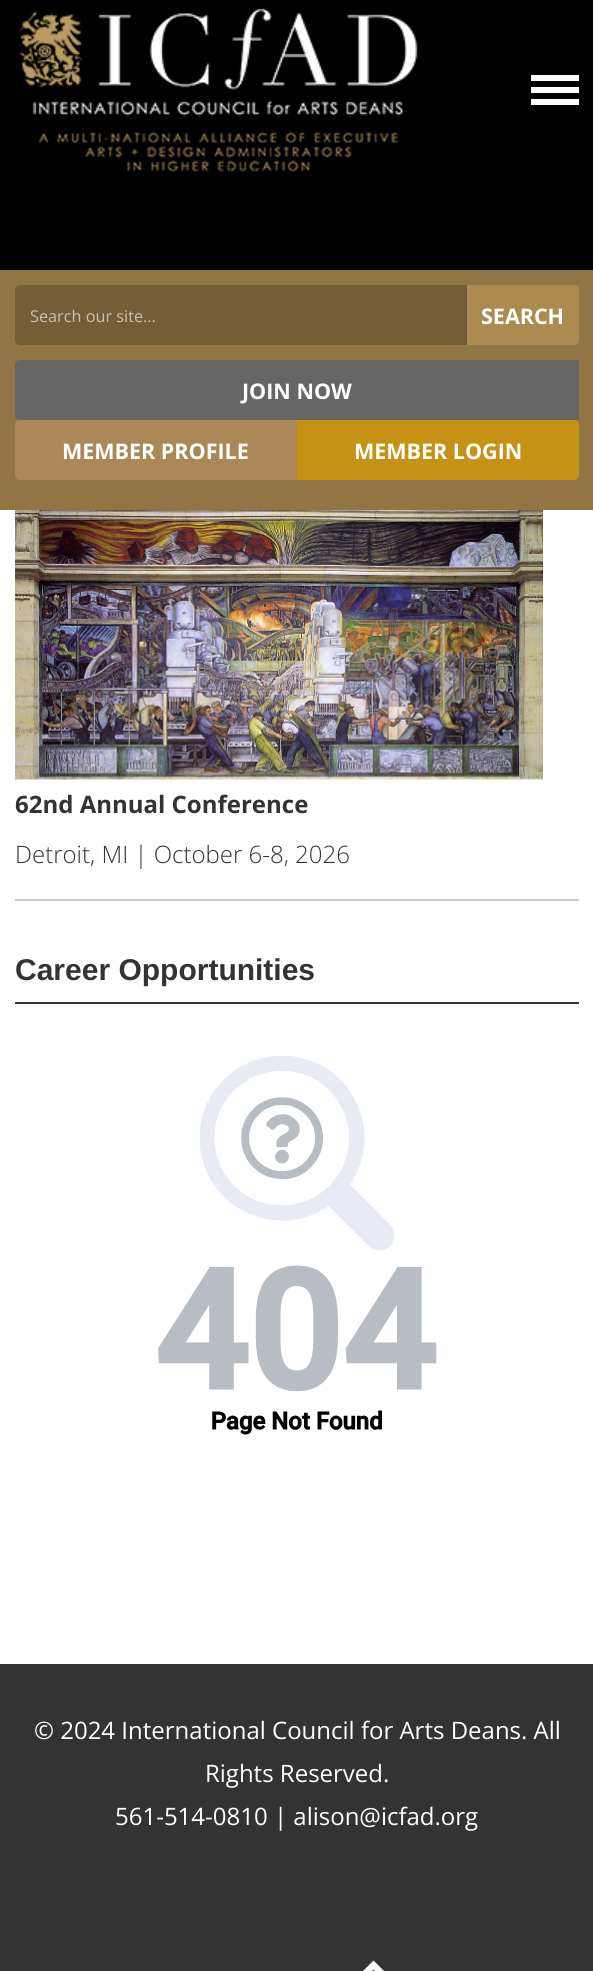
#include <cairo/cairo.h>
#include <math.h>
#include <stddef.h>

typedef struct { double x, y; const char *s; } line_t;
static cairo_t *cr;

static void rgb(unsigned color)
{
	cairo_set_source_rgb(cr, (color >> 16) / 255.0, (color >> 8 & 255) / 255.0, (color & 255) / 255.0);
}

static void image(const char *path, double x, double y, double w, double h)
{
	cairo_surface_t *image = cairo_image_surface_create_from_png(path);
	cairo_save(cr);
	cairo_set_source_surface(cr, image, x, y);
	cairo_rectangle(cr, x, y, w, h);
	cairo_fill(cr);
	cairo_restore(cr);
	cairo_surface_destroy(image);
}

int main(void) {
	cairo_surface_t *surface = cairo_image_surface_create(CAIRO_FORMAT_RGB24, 593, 1971);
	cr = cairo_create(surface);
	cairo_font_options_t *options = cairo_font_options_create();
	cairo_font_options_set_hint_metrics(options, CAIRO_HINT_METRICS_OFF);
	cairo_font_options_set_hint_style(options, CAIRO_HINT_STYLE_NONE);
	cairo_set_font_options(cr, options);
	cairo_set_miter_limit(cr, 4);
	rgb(0xffffff);
	cairo_paint(cr);
	rgb(0x000000);
	cairo_rectangle(cr, 0, 0, 593, 270);
	cairo_fill(cr);
	image("img/1.png", 18, 8, 400, 164);
	rgb(0xffffff);
	cairo_set_fill_rule(cr, CAIRO_FILL_RULE_EVEN_ODD);
	cairo_new_path(cr);
	cairo_move_to(cr, 531, 75);
	cairo_line_to(cr, 579, 75);
	cairo_line_to(cr, 579, 81);
	cairo_line_to(cr, 531, 81);
	cairo_close_path(cr);
	cairo_move_to(cr, 531, 87);
	cairo_line_to(cr, 579, 87);
	cairo_line_to(cr, 579, 93);
	cairo_line_to(cr, 531, 93);
	cairo_close_path(cr);
	cairo_move_to(cr, 531, 99);
	cairo_line_to(cr, 579, 99);
	cairo_line_to(cr, 579, 105);
	cairo_line_to(cr, 531, 105);
	cairo_close_path(cr);
	cairo_fill(cr);
	rgb(0x917545);
	cairo_rectangle(cr, 0, 270, 593, 240);
	cairo_fill(cr);
	rgb(0x745e37);
	cairo_new_path(cr);
	cairo_move_to(cr, 20, 285);
	cairo_line_to(cr, 467, 285);
	cairo_line_to(cr, 467, 345);
	cairo_line_to(cr, 20, 345);
	cairo_curve_to(cr, 17, 345, 15, 343, 15, 340);
	cairo_line_to(cr, 15, 290);
	cairo_curve_to(cr, 15, 287, 17, 285, 20, 285);
	cairo_close_path(cr);
	cairo_fill(cr);
	rgb(0xac8a50);
	cairo_new_path(cr);
	cairo_move_to(cr, 467, 285);
	cairo_line_to(cr, 574, 285);
	cairo_curve_to(cr, 577, 285, 579, 287, 579, 290);
	cairo_line_to(cr, 579, 340);
	cairo_curve_to(cr, 579, 343, 577, 345, 574, 345);
	cairo_line_to(cr, 467, 345);
	cairo_close_path(cr);
	cairo_fill(cr);
	rgb(0x666666);
	cairo_new_path(cr);
	cairo_move_to(cr, 20, 360);
	cairo_line_to(cr, 579, 360);
	cairo_line_to(cr, 579, 420);
	cairo_line_to(cr, 20, 420);
	cairo_curve_to(cr, 17, 420, 15, 418, 15, 415);
	cairo_line_to(cr, 15, 365);
	cairo_curve_to(cr, 15, 362, 17, 360, 20, 360);
	cairo_close_path(cr);
	cairo_fill(cr);
	rgb(0xac8859);
	cairo_new_path(cr);
	cairo_move_to(cr, 20, 420);
	cairo_line_to(cr, 297, 420);
	cairo_line_to(cr, 297, 480);
	cairo_line_to(cr, 20, 480);
	cairo_curve_to(cr, 17, 480, 15, 478, 15, 475);
	cairo_line_to(cr, 15, 425);
	cairo_curve_to(cr, 15, 422, 17, 420, 20, 420);
	cairo_close_path(cr);
	cairo_fill(cr);
	rgb(0xc69214);
	cairo_new_path(cr);
	cairo_move_to(cr, 297, 420);
	cairo_line_to(cr, 574, 420);
	cairo_curve_to(cr, 577, 420, 579, 422, 579, 425);
	cairo_line_to(cr, 579, 475);
	cairo_curve_to(cr, 579, 478, 577, 480, 574, 480);
	cairo_line_to(cr, 297, 480);
	cairo_close_path(cr);
	cairo_fill(cr);
	rgb(0xcccccc);
	cairo_rectangle(cr, 15, 899, 564, 2);
	cairo_fill(cr);
	image("img/2.png", 15, 510, 528, 270);
	rgb(0x333333);
	cairo_rectangle(cr, 15, 1002, 564, 2);
	cairo_fill(cr);
	image("img/3.png", 158, 1056, 279, 379);
	cairo_rectangle(cr, 0, 1664, 593, 307);
	cairo_fill(cr);
	rgb(0xffffff);
	cairo_set_fill_rule(cr, CAIRO_FILL_RULE_WINDING);
	cairo_new_path(cr);
	cairo_move_to(cr, 361.5, 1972.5);
	cairo_line_to(cr, 366, 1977);
	cairo_line_to(cr, 373.5, 1969.5);
	cairo_line_to(cr, 381, 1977);
	cairo_line_to(cr, 385.5, 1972.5);
	cairo_line_to(cr, 373.5, 1960.5);
	cairo_close_path(cr);
	cairo_fill(cr);
	cairo_select_font_face(cr, "Open Sans", CAIRO_FONT_SLANT_NORMAL, CAIRO_FONT_WEIGHT_NORMAL);
	cairo_set_font_size(cr, 16.25);
	rgb(0xc7bfaf);
	cairo_move_to(cr, 30, 322);
	cairo_show_text(cr, "Search our site...");
	cairo_select_font_face(cr, "Open Sans", CAIRO_FONT_SLANT_NORMAL, CAIRO_FONT_WEIGHT_BOLD);
	cairo_set_font_size(cr, 21.5);
	rgb(0xffffff);
	{
		static const line_t items[] = {
			{481, 324, "SEARCH"},
			{242, 399, "JOIN NOW"},
			{62, 459, "MEMBER PROFILE"},
			{354, 459, "MEMBER LOGIN"},
		};
		for (size_t i = 0; i < sizeof items / sizeof *items; i++) {
			cairo_move_to(cr, items[i].x, items[i].y);
			cairo_show_text(cr, items[i].s);
		}
	}
	cairo_set_font_size(cr, 24);
	rgb(0x333333);
	cairo_move_to(cr, 15, 813);
	cairo_show_text(cr, "62nd Annual Conference");
	cairo_select_font_face(cr, "Open Sans Light", CAIRO_FONT_SLANT_NORMAL, CAIRO_FONT_WEIGHT_NORMAL);
	cairo_move_to(cr, 15, 863);
	cairo_show_text(cr, "Detroit, MI | October 6-8, 2026");
	cairo_select_font_face(cr, "Liberation Sans", CAIRO_FONT_SLANT_NORMAL, CAIRO_FONT_WEIGHT_BOLD);
	cairo_set_font_size(cr, 30);
	cairo_move_to(cr, 15, 980);
	cairo_show_text(cr, "Career Opportunities");
	cairo_select_font_face(cr, "Open Sans", CAIRO_FONT_SLANT_NORMAL, CAIRO_FONT_WEIGHT_NORMAL);
	cairo_set_font_size(cr, 24);
	rgb(0xffffff);
	{
		static const line_t items[] = {
			{34, 1739, "© 2024 International Council for Arts Deans. All"},
			{205, 1782, "Rights Reserved."},
			{115, 1825, "561-514-0810 | alison@icfad.org"},
		};
		for (size_t i = 0; i < sizeof items / sizeof *items; i++) {
			cairo_move_to(cr, items[i].x, items[i].y);
			cairo_show_text(cr, items[i].s);
		}
	}
	cairo_surface_write_to_png(surface, "page.png");
	cairo_font_options_destroy(options);
	cairo_destroy(cr);
	cairo_surface_destroy(surface);
	return 0;
}
